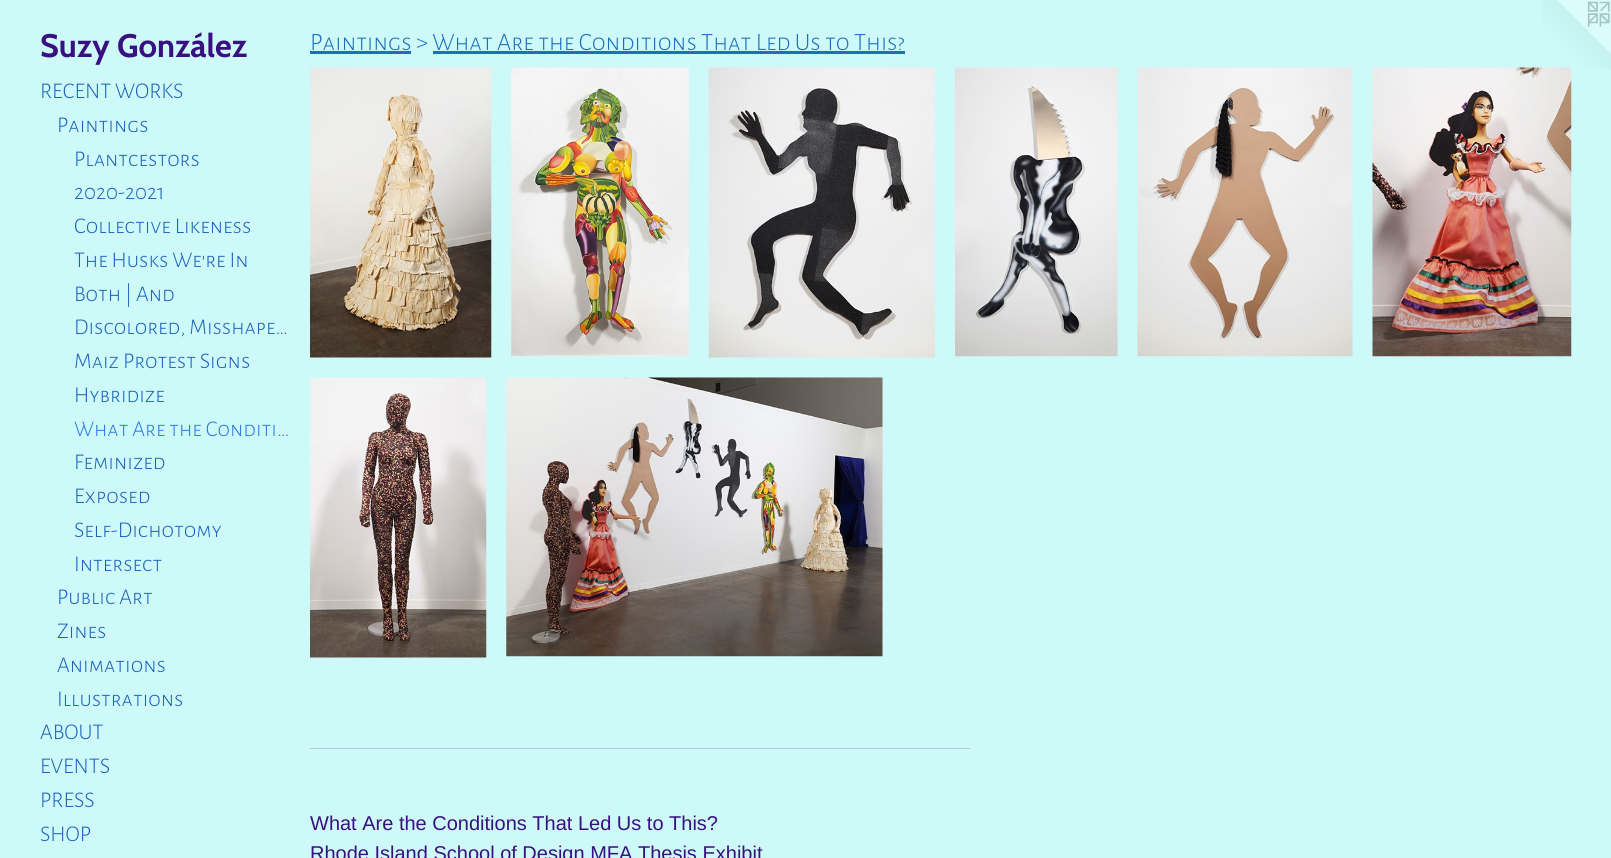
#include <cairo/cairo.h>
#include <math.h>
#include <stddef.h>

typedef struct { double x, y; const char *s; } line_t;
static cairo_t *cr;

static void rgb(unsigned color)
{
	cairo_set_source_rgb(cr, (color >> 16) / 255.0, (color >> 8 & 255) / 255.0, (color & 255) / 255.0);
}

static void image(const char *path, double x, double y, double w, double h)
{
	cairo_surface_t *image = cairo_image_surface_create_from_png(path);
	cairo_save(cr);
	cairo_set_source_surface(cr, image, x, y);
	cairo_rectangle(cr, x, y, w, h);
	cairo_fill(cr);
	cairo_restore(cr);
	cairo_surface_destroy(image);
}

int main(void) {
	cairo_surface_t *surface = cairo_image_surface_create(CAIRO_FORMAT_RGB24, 1611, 858);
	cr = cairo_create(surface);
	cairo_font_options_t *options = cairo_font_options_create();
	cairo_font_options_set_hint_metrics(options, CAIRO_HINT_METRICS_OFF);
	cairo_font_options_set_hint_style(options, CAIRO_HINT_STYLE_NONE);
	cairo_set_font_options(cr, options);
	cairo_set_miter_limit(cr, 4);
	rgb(0xcdf9f9);
	cairo_paint(cr);
	rgb(0x1c70ba);
	cairo_rectangle(cr, 310, 51, 101, 3);
	cairo_fill(cr);
	cairo_rectangle(cr, 433, 51, 472, 3);
	cairo_fill(cr);
	image("img/1.png", 310, 67, 182, 291);
	image("img/2.png", 511, 67, 178, 290);
	image("img/3.png", 708, 67, 227, 291);
	image("img/4.png", 955, 67, 163, 290);
	image("img/5.png", 1137, 67, 216, 290);
	image("img/9.png", 1542, 0, 69, 69);
	image("img/6.png", 1372, 67, 200, 290);
	image("img/7.png", 310, 377, 177, 281);
	image("img/8.png", 506, 377, 377, 280);
	rgb(0xafcae1);
	cairo_rectangle(cr, 310, 748, 660, 1);
	cairo_fill(cr);
	cairo_select_font_face(cr, "Cabin", CAIRO_FONT_SLANT_NORMAL, CAIRO_FONT_WEIGHT_BOLD);
	cairo_set_font_size(cr, 32.5);
	rgb(0x39107f);
	cairo_move_to(cr, 40, 57);
	cairo_show_text(cr, "Suzy González");
	cairo_select_font_face(cr, "Alegreya Sans SC Light", CAIRO_FONT_SLANT_NORMAL, CAIRO_FONT_WEIGHT_NORMAL);
	cairo_set_font_size(cr, 22.5);
	rgb(0x1c62ba);
	{
		static const line_t items[] = {
			{40, 98, "RECENT WORKS"},
			{57, 132, "Paintings"},
			{74, 166, "Plantcestors"},
			{74, 199, "2020-2021"},
			{74, 233, "Collective Likeness"},
			{74, 267, "The Husks We're In"},
			{74, 301, "Both | And"},
			{74, 334, "Discolored, Misshape…"},
			{74, 368, "Maiz Protest Signs"},
			{74, 402, "Hybridize"},
		};
		for (size_t i = 0; i < sizeof items / sizeof *items; i++) {
			cairo_move_to(cr, items[i].x, items[i].y);
			cairo_show_text(cr, items[i].s);
		}
	}
	rgb(0x2a7adf);
	cairo_move_to(cr, 74, 436);
	cairo_show_text(cr, "What Are the Conditi…");
	rgb(0x1c62ba);
	{
		static const line_t items[] = {
			{74, 469, "Feminized"},
			{74, 503, "Exposed"},
			{74, 537, "Self-Dichotomy"},
			{74, 571, "Intersect"},
			{57, 604, "Public Art"},
			{57, 638, "Zines"},
			{57, 672, "Animations"},
			{57, 706, "Illustrations"},
			{40, 739, "ABOUT"},
			{40, 773, "EVENTS"},
			{40, 807, "PRESS"},
			{40, 841, "SHOP"},
		};
		for (size_t i = 0; i < sizeof items / sizeof *items; i++) {
			cairo_move_to(cr, items[i].x, items[i].y);
			cairo_show_text(cr, items[i].s);
		}
	}
	cairo_set_font_size(cr, 25);
	rgb(0x1c70ba);
	cairo_move_to(cr, 310, 50);
	cairo_show_text(cr, "Paintings > What Are the Conditions That Led Us to This?");
	cairo_select_font_face(cr, "Liberation Sans", CAIRO_FONT_SLANT_NORMAL, CAIRO_FONT_WEIGHT_NORMAL);
	cairo_set_font_size(cr, 20);
	rgb(0x39107f);
	cairo_move_to(cr, 310, 830);
	cairo_show_text(cr, "What Are the Conditions That Led Us to This?");
	cairo_move_to(cr, 310, 860);
	cairo_show_text(cr, "Rhode Island School of Design MFA Thesis Exhibit");
	cairo_surface_write_to_png(surface, "page.png");
	cairo_font_options_destroy(options);
	cairo_destroy(cr);
	cairo_surface_destroy(surface);
	return 0;
}
